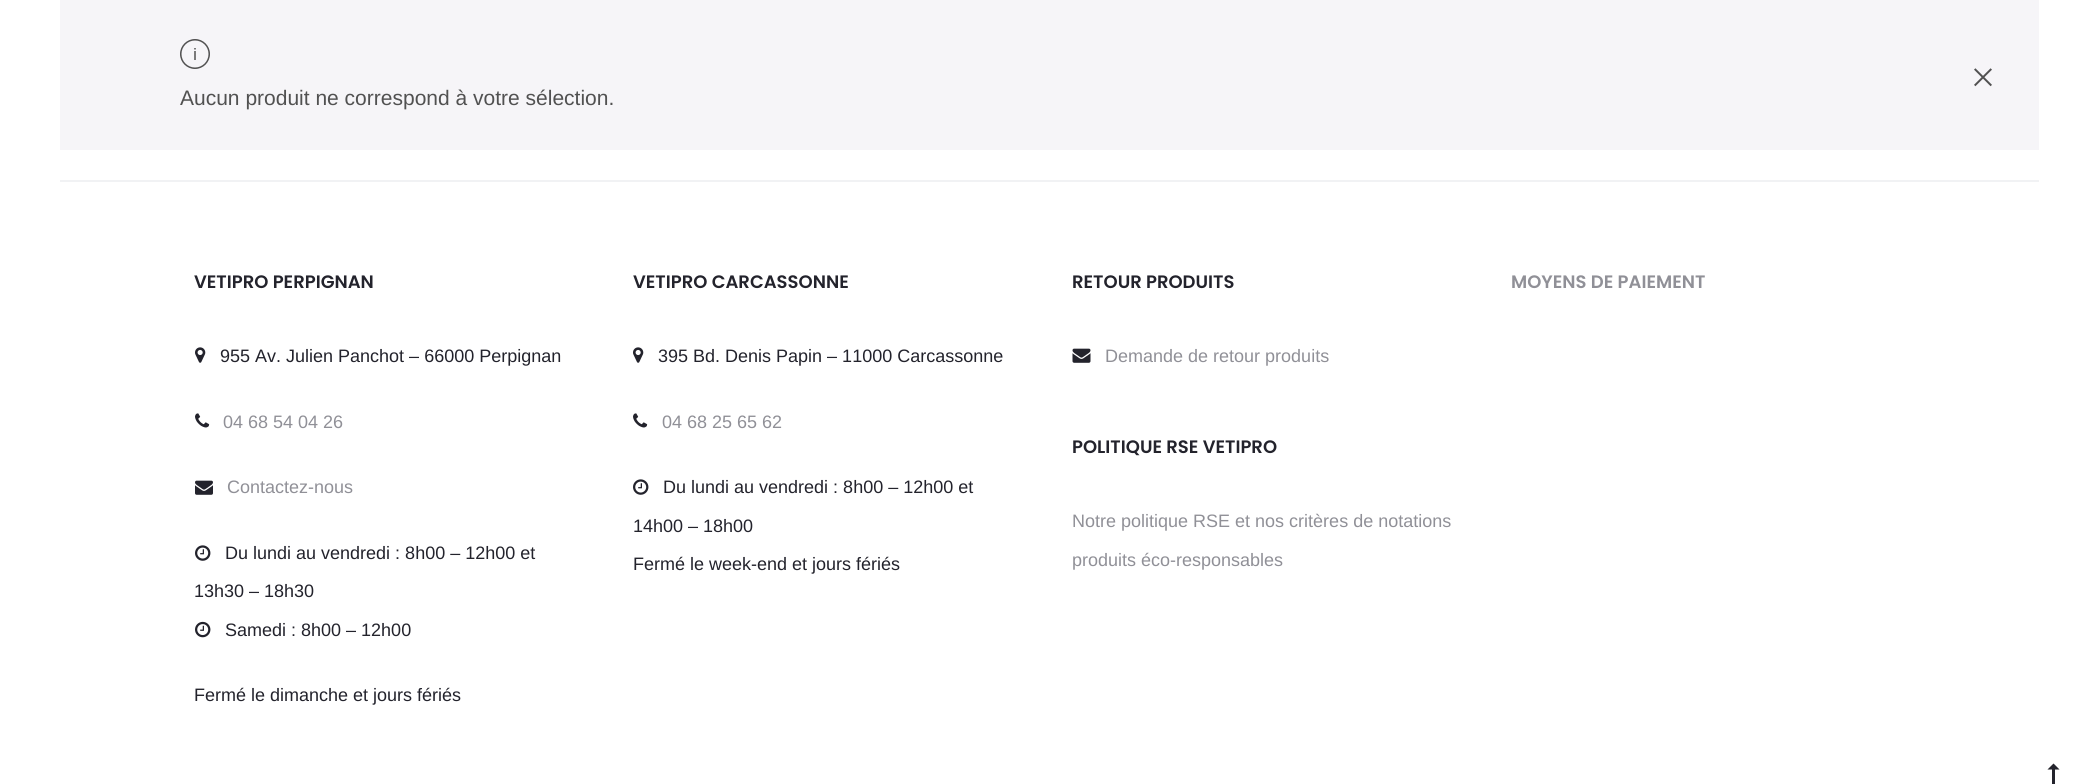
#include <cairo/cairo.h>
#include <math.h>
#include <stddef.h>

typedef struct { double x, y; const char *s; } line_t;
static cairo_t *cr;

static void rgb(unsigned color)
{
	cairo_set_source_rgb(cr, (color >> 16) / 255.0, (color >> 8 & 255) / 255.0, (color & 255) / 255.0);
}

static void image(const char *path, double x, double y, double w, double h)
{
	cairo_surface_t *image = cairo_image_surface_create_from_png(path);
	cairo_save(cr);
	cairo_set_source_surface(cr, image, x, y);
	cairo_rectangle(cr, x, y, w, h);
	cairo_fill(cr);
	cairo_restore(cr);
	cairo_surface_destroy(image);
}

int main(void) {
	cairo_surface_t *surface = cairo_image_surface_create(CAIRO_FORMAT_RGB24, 2098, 784);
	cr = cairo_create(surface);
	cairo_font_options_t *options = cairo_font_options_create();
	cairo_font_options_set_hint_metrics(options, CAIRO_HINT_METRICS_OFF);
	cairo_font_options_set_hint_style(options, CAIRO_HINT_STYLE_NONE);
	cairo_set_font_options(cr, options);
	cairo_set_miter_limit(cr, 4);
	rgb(0xffffff);
	cairo_paint(cr);
	rgb(0xf6f5f8);
	cairo_rectangle(cr, 60, 0, 1979, 150);
	cairo_fill(cr);
	image("img/1.png", 180, 39, 30, 30);
	image("img/2.png", 1974, 68, 18, 19);
	rgb(0xf1f2f4);
	cairo_rectangle(cr, 60, 180, 1979, 2);
	cairo_fill(cr);
	image("img/3.png", 195, 347, 11, 16);
	image("img/4.png", 195, 413, 15, 15);
	image("img/5.png", 195, 480, 18, 15);
	image("img/6.png", 195, 545, 16, 16);
	image("img/7.png", 195, 621, 16, 17);
	image("img/3.png", 633, 347, 11, 16);
	image("img/4.png", 633, 413, 15, 15);
	image("img/6.png", 633, 479, 16, 16);
	image("img/8.png", 1072, 348, 19, 15);
	image("img/9.png", 2047, 763, 13, 21);
	cairo_select_font_face(cr, "Liberation Sans", CAIRO_FONT_SLANT_NORMAL, CAIRO_FONT_WEIGHT_NORMAL);
	cairo_set_font_size(cr, 21);
	rgb(0x515151);
	cairo_move_to(cr, 180, 105);
	cairo_show_text(cr, "Aucun produit ne correspond à votre sélection.");
	cairo_select_font_face(cr, "Poppins SemiBold", CAIRO_FONT_SLANT_NORMAL, CAIRO_FONT_WEIGHT_NORMAL);
	cairo_set_font_size(cr, 18);
	rgb(0x23232c);
	cairo_move_to(cr, 194, 288);
	cairo_show_text(cr, "VETIPRO PERPIGNAN");
	cairo_select_font_face(cr, "Liberation Sans", CAIRO_FONT_SLANT_NORMAL, CAIRO_FONT_WEIGHT_NORMAL);
	cairo_move_to(cr, 220, 362);
	cairo_show_text(cr, "955 Av. Julien Panchot – 66000 Perpignan");
	rgb(0x909097);
	cairo_move_to(cr, 223, 428);
	cairo_show_text(cr, "04 68 54 04 26");
	cairo_move_to(cr, 227, 493);
	cairo_show_text(cr, "Contactez-nous");
	rgb(0x23232c);
	{
		static const line_t items[] = {
			{225, 559, "Du lundi au vendredi : 8h00 – 12h00 et"},
			{194, 597, "13h30 – 18h30"},
			{225, 636, "Samedi : 8h00 – 12h00"},
			{194, 701, "Fermé le dimanche et jours fériés"},
		};
		for (size_t i = 0; i < sizeof items / sizeof *items; i++) {
			cairo_move_to(cr, items[i].x, items[i].y);
			cairo_show_text(cr, items[i].s);
		}
	}
	cairo_select_font_face(cr, "Poppins SemiBold", CAIRO_FONT_SLANT_NORMAL, CAIRO_FONT_WEIGHT_NORMAL);
	cairo_move_to(cr, 633, 288);
	cairo_show_text(cr, "VETIPRO CARCASSONNE");
	cairo_select_font_face(cr, "Liberation Sans", CAIRO_FONT_SLANT_NORMAL, CAIRO_FONT_WEIGHT_NORMAL);
	cairo_move_to(cr, 658, 362);
	cairo_show_text(cr, "395 Bd. Denis Papin – 11000 Carcassonne");
	rgb(0x909097);
	cairo_move_to(cr, 662, 428);
	cairo_show_text(cr, "04 68 25 65 62");
	rgb(0x23232c);
	{
		static const line_t items[] = {
			{663, 493, "Du lundi au vendredi : 8h00 – 12h00 et"},
			{633, 532, "14h00 – 18h00"},
			{633, 570, "Fermé le week-end et jours fériés"},
		};
		for (size_t i = 0; i < sizeof items / sizeof *items; i++) {
			cairo_move_to(cr, items[i].x, items[i].y);
			cairo_show_text(cr, items[i].s);
		}
	}
	cairo_select_font_face(cr, "Poppins SemiBold", CAIRO_FONT_SLANT_NORMAL, CAIRO_FONT_WEIGHT_NORMAL);
	cairo_move_to(cr, 1072, 288);
	cairo_show_text(cr, "RETOUR PRODUITS");
	cairo_select_font_face(cr, "Liberation Sans", CAIRO_FONT_SLANT_NORMAL, CAIRO_FONT_WEIGHT_NORMAL);
	rgb(0x909097);
	cairo_move_to(cr, 1105, 362);
	cairo_show_text(cr, "Demande de retour produits");
	cairo_select_font_face(cr, "Poppins SemiBold", CAIRO_FONT_SLANT_NORMAL, CAIRO_FONT_WEIGHT_NORMAL);
	rgb(0x23232c);
	cairo_move_to(cr, 1072, 453);
	cairo_show_text(cr, "POLITIQUE RSE VETIPRO");
	cairo_select_font_face(cr, "Liberation Sans", CAIRO_FONT_SLANT_NORMAL, CAIRO_FONT_WEIGHT_NORMAL);
	rgb(0x909097);
	cairo_move_to(cr, 1072, 527);
	cairo_show_text(cr, "Notre politique RSE et nos critères de notations");
	cairo_move_to(cr, 1072, 566);
	cairo_show_text(cr, "produits éco-responsables");
	cairo_select_font_face(cr, "Poppins SemiBold", CAIRO_FONT_SLANT_NORMAL, CAIRO_FONT_WEIGHT_NORMAL);
	cairo_move_to(cr, 1511, 288);
	cairo_show_text(cr, "MOYENS DE PAIEMENT");
	cairo_surface_write_to_png(surface, "page.png");
	cairo_font_options_destroy(options);
	cairo_destroy(cr);
	cairo_surface_destroy(surface);
	return 0;
}
